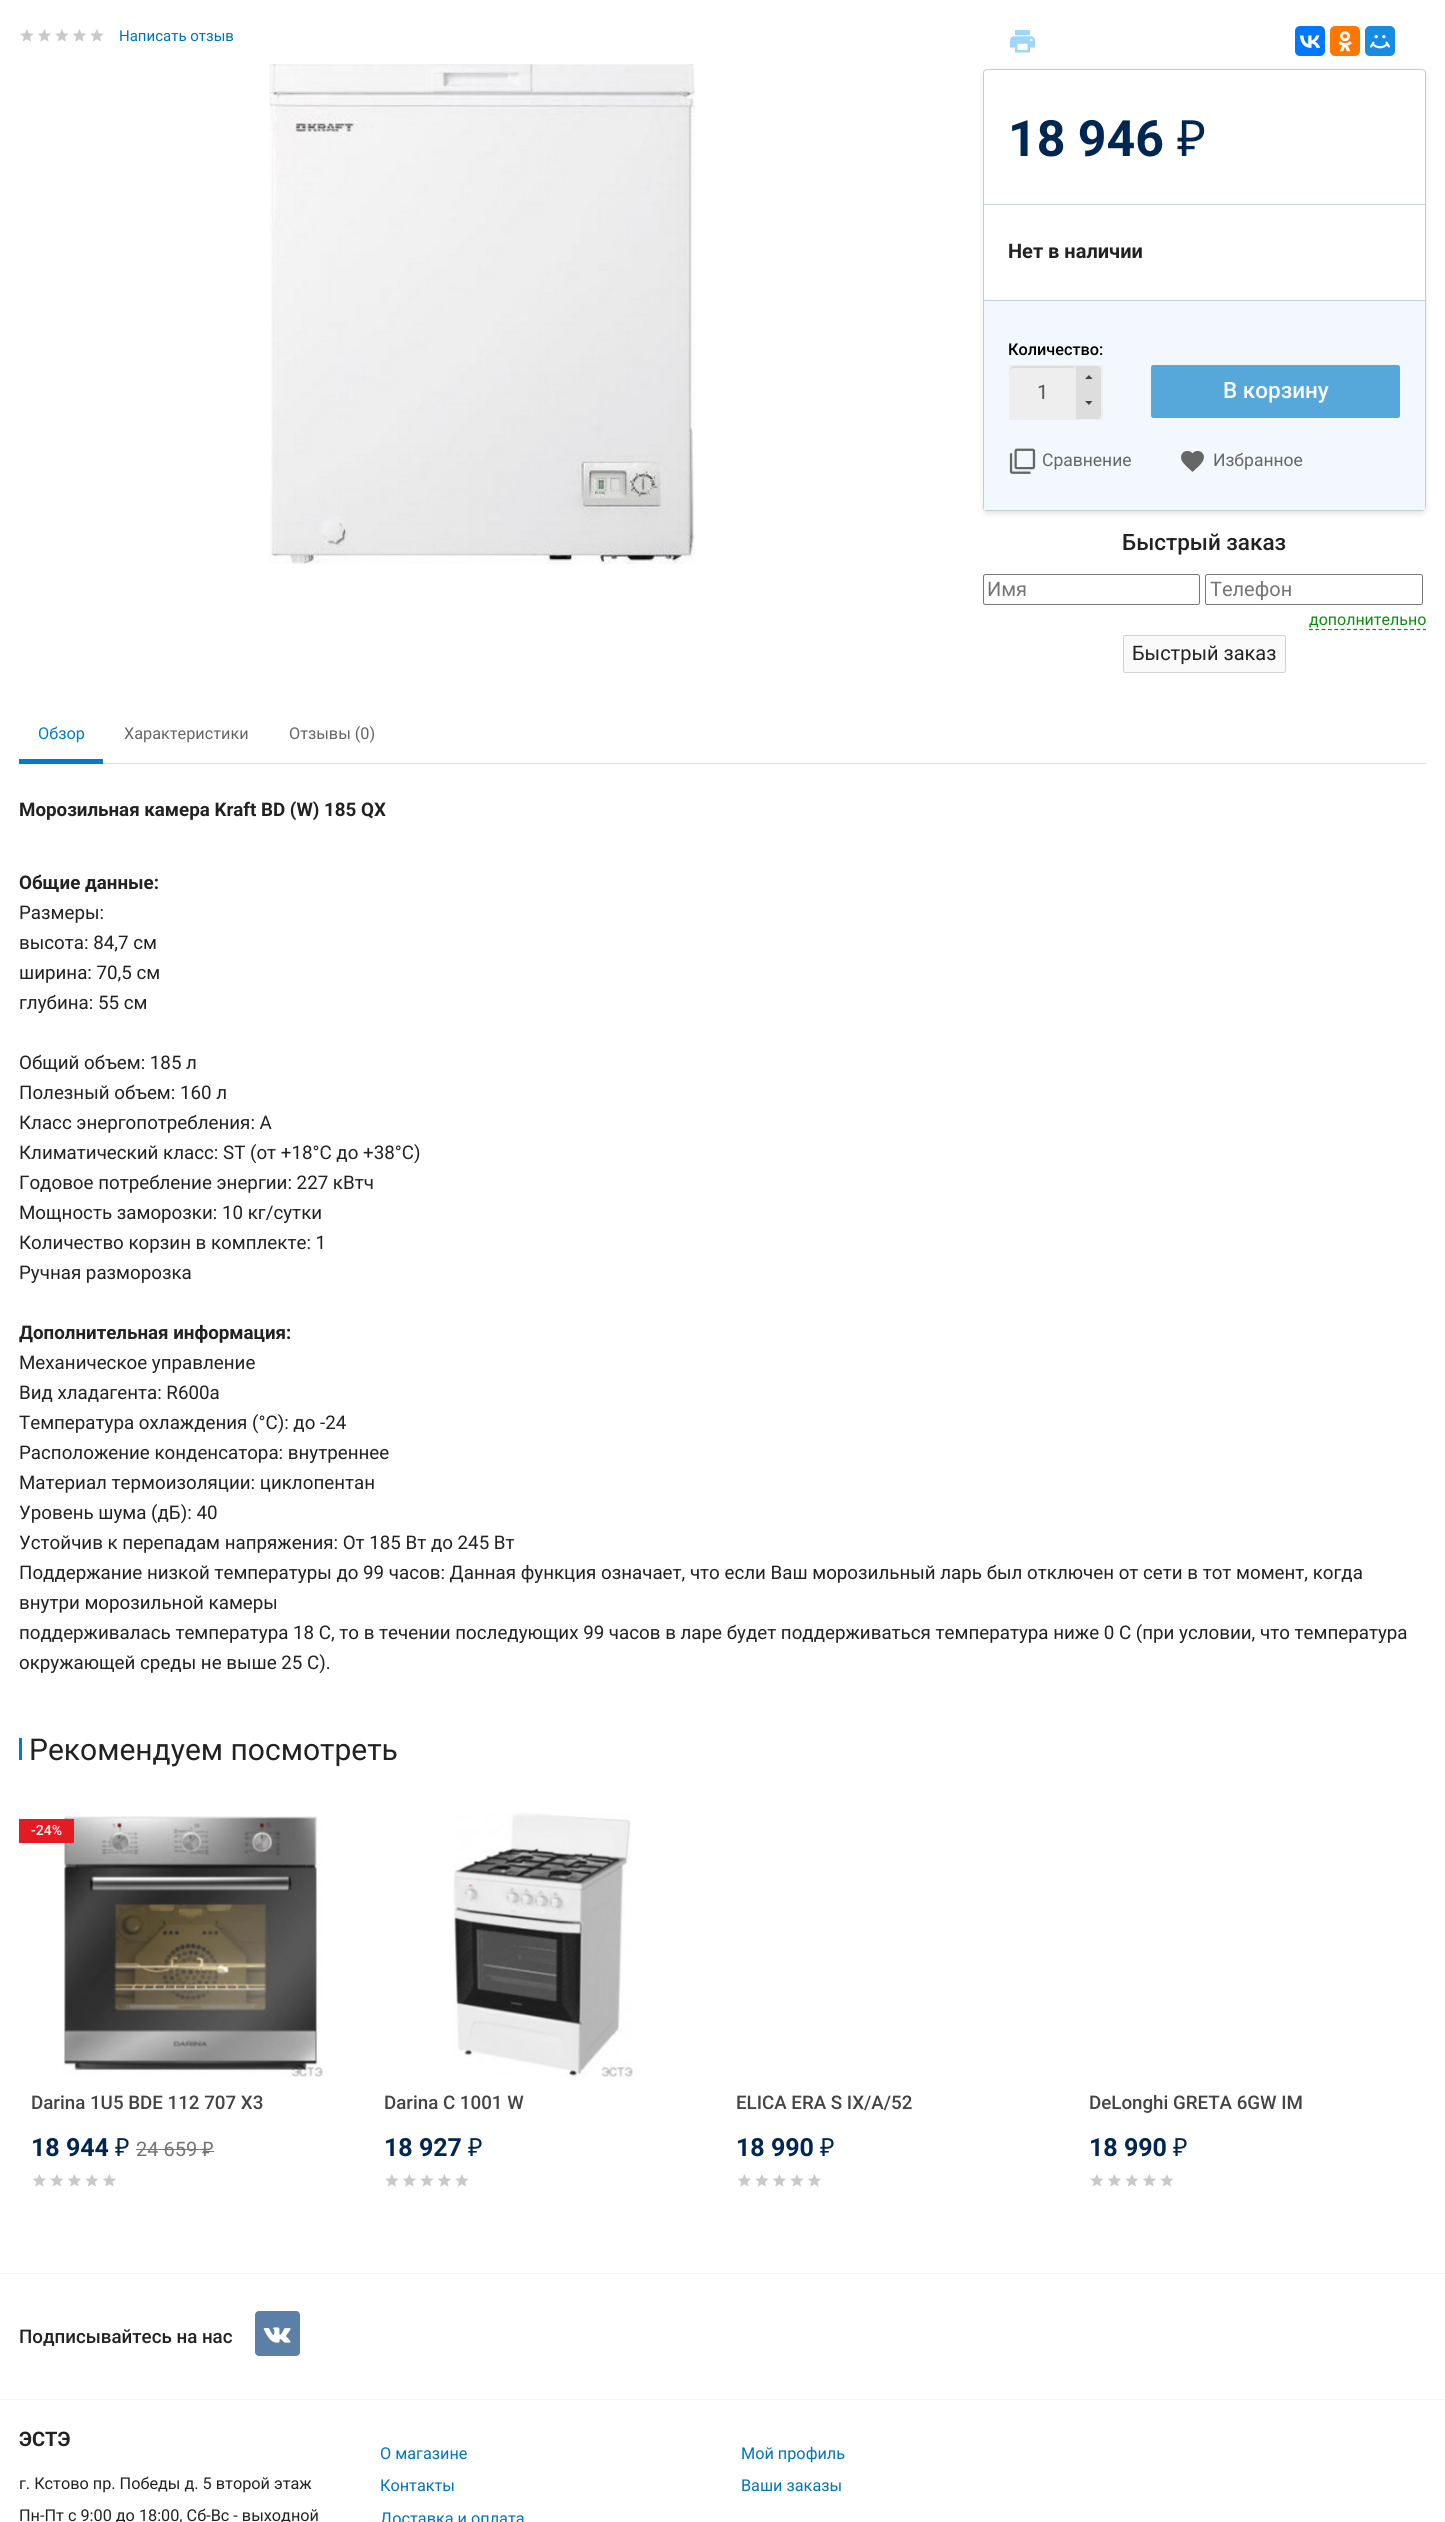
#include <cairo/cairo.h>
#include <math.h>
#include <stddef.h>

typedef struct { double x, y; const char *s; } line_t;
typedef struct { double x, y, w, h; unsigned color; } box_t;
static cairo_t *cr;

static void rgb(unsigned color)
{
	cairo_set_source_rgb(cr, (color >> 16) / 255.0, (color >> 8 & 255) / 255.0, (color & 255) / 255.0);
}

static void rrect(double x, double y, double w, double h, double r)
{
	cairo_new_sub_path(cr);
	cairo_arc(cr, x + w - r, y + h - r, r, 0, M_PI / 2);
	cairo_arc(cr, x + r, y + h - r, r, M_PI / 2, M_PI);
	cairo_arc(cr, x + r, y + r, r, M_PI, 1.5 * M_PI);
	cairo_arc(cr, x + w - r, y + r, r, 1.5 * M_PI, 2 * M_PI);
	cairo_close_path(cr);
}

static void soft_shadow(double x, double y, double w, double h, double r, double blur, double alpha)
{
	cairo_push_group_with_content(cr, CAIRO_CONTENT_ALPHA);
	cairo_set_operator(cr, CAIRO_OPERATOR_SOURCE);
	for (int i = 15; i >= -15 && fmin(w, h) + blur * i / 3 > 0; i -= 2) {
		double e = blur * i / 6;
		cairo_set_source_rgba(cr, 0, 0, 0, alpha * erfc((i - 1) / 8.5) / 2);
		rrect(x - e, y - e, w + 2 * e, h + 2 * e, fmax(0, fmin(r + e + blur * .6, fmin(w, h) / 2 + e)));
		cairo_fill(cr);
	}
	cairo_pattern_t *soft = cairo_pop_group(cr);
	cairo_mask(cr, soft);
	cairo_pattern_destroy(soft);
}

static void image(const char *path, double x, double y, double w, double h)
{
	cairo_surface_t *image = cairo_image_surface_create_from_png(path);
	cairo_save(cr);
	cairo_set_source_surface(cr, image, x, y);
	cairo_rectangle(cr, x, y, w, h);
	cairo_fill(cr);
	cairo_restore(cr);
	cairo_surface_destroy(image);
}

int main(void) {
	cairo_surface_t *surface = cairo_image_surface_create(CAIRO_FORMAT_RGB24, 1445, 2522);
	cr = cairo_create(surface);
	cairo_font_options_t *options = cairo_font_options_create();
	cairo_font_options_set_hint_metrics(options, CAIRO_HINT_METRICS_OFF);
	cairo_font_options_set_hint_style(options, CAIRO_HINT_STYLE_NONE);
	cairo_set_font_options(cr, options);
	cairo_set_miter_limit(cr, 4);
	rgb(0xffffff);
	cairo_paint(cr);
	image("img/1.png", 20, 29, 14, 13);
	image("img/2.png", 38, 29, 13, 13);
	image("img/1.png", 55, 29, 14, 13);
	image("img/2.png", 73, 29, 13, 13);
	image("img/1.png", 90, 29, 14, 13);
	image("img/3.png", 269, 64, 426, 500);
	image("img/4.png", 1010, 30, 25, 23);
	rgb(0x0077ff);
	rrect(1295, 26, 30, 30, 5);
	cairo_fill(cr);
	image("img/5.png", 1300, 35, 20, 13);
	rgb(0xff7700);
	rrect(1330, 26, 30, 30, 5);
	cairo_fill(cr);
	image("img/6.png", 1338, 31, 14, 21);
	rgb(0x168de2);
	rrect(1365, 26, 30, 30, 5);
	cairo_fill(cr);
	image("img/7.png", 1370, 35, 20, 14);
	cairo_save(cr);
	cairo_set_fill_rule(cr, CAIRO_FILL_RULE_EVEN_ODD);
	cairo_new_path(cr);
	cairo_move_to(cr, 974, 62);
	cairo_line_to(cr, 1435, 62);
	cairo_line_to(cr, 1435, 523);
	cairo_line_to(cr, 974, 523);
	cairo_close_path(cr);
	cairo_move_to(cr, 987, 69);
	cairo_line_to(cr, 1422, 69);
	cairo_curve_to(cr, 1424, 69, 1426, 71, 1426, 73);
	cairo_line_to(cr, 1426, 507);
	cairo_curve_to(cr, 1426, 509, 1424, 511, 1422, 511);
	cairo_line_to(cr, 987, 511);
	cairo_curve_to(cr, 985, 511, 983, 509, 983, 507);
	cairo_line_to(cr, 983, 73);
	cairo_curve_to(cr, 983, 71, 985, 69, 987, 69);
	cairo_close_path(cr);
	cairo_clip(cr);
	rgb(0x000000);
	soft_shadow(983, 71, 443, 443, 4, 2.5, 0.1);
	cairo_restore(cr);
	rrect(983.5, 69.5, 442, 441, 3.5);
	rgb(0xc2cfd6);
	cairo_set_line_width(cr, 1);
	cairo_stroke(cr);
	{
		static const box_t items[] = {
			{984, 204, 441, 1, 0xc2cfd6},
			{984, 301, 441, 209, 0xf2f8fd},
			{984, 300, 441, 1, 0xc2cfd6},
			{1009, 365, 94, 55, 0xeeeeee},
		};
		for (size_t i = 0; i < sizeof items / sizeof *items; i++) {
			rgb(items[i].color);
			cairo_rectangle(cr, items[i].x, items[i].y, items[i].w, items[i].h);
			cairo_fill(cr);
		}
	}
	rgb(0xdcdcdc);
	cairo_new_path(cr);
	cairo_move_to(cr, 1014, 368);
	cairo_line_to(cr, 1072, 368);
	cairo_curve_to(cr, 1075, 368, 1076, 369, 1076, 371);
	cairo_curve_to(cr, 1076, 364, 1067, 366, 1062, 366);
	cairo_line_to(cr, 1024, 366);
	cairo_curve_to(cr, 1019, 366, 1010, 364, 1010, 371);
	cairo_curve_to(cr, 1010, 369, 1012, 368, 1014, 368);
	cairo_close_path(cr);
	cairo_fill(cr);
	rgb(0xdddddd);
	cairo_new_path(cr);
	cairo_move_to(cr, 1076, 366);
	cairo_line_to(cr, 1097, 366);
	cairo_curve_to(cr, 1099, 366, 1101, 368, 1101, 370);
	cairo_line_to(cr, 1101, 393);
	cairo_line_to(cr, 1076, 393);
	cairo_close_path(cr);
	cairo_fill(cr);
	rgb(0x444444);
	cairo_new_path(cr);
	cairo_move_to(cr, 1092.5, 379);
	cairo_line_to(cr, 1085, 379);
	cairo_line_to(cr, 1089, 375);
	cairo_close_path(cr);
	cairo_fill(cr);
	rgb(0xdddddd);
	cairo_new_path(cr);
	cairo_move_to(cr, 1076, 393);
	cairo_line_to(cr, 1101, 393);
	cairo_line_to(cr, 1101, 415);
	cairo_curve_to(cr, 1101, 417, 1099, 419, 1097, 419);
	cairo_line_to(cr, 1076, 419);
	cairo_close_path(cr);
	cairo_fill(cr);
	rgb(0x444444);
	cairo_new_path(cr);
	cairo_move_to(cr, 1085, 401);
	cairo_line_to(cr, 1092.5, 401);
	cairo_line_to(cr, 1089, 405);
	cairo_close_path(cr);
	cairo_fill(cr);
	rgb(0x55a8d9);
	rrect(1151.5, 365.5, 248, 52, 2);
	cairo_fill_preserve(cr);
	cairo_stroke(cr);
	image("img/8.png", 1009, 448, 27, 26);
	image("img/9.png", 1181, 450, 23, 22);
	rrect(983.5, 574.5, 216, 30, 2);
	rgb(0x767676);
	cairo_stroke(cr);
	rrect(1205.5, 574.5, 217, 30, 2);
	cairo_stroke(cr);
	cairo_new_path(cr);
	cairo_move_to(cr, 1309, 629.5);
	cairo_line_to(cr, 1426, 629.5);
	rgb(0x0b8c0e);
	cairo_set_line_width(cr, 1.2);
	cairo_set_dash(cr, (double[]){3.75, 2.58}, 2, 0);
	cairo_stroke(cr);
	rgb(0xfafafa);
	rrect(1123.5, 635.5, 162, 37, 2);
	cairo_fill_preserve(cr);
	rgb(0xd2d2d2);
	cairo_set_line_width(cr, 1);
	cairo_set_dash(cr, NULL, 0, 0);
	cairo_stroke(cr);
	{
		static const box_t items[] = {
			{103, 763, 1323, 1, 0xdddddd},
			{19, 759, 84, 5, 0x007dc6},
			{19, 1738, 3, 22, 0x007dc6},
		};
		for (size_t i = 0; i < sizeof items / sizeof *items; i++) {
			rgb(items[i].color);
			cairo_rectangle(cr, items[i].x, items[i].y, items[i].w, items[i].h);
			cairo_fill(cr);
		}
	}
	image("img/10.png", 63, 1816, 260, 261);
	rgb(0xe51b24);
	cairo_rectangle(cr, 19, 1819, 55, 24);
	cairo_fill(cr);
	image("img/2.png", 33, 2174, 13, 13);
	image("img/1.png", 50, 2174, 14, 13);
	image("img/2.png", 68, 2174, 13, 13);
	image("img/1.png", 85, 2174, 14, 13);
	image("img/2.png", 103, 2174, 13, 13);
	image("img/11.png", 453, 1813, 180, 264);
	image("img/1.png", 385, 2174, 14, 13);
	image("img/2.png", 403, 2174, 13, 13);
	image("img/1.png", 420, 2174, 14, 13);
	image("img/2.png", 438, 2174, 13, 13);
	image("img/1.png", 455, 2174, 14, 13);
	image("img/2.png", 738, 2174, 13, 13);
	image("img/1.png", 755, 2174, 14, 13);
	image("img/2.png", 773, 2174, 13, 13);
	image("img/1.png", 790, 2174, 14, 13);
	image("img/2.png", 808, 2174, 13, 13);
	image("img/1.png", 1090, 2174, 14, 13);
	image("img/2.png", 1108, 2174, 13, 13);
	image("img/1.png", 1125, 2174, 14, 13);
	image("img/2.png", 1143, 2174, 13, 13);
	image("img/1.png", 1160, 2174, 14, 13);
	rgb(0xf4f4f4);
	cairo_rectangle(cr, 0, 2273, 1445, 1);
	cairo_fill(cr);
	rgb(0x5b7fa6);
	rrect(255, 2311, 45, 45, 4);
	cairo_fill(cr);
	image("img/12.png", 263, 2327, 28, 16);
	rgb(0xf4f4f4);
	cairo_rectangle(cr, 0, 2399, 1445, 1);
	cairo_fill(cr);
	cairo_select_font_face(cr, "Roboto", CAIRO_FONT_SLANT_NORMAL, CAIRO_FONT_WEIGHT_NORMAL);
	cairo_set_font_size(cr, 15);
	rgb(0x0074b8);
	cairo_move_to(cr, 119, 41);
	cairo_show_text(cr, "Написать отзыв");
	cairo_select_font_face(cr, "Roboto", CAIRO_FONT_SLANT_NORMAL, CAIRO_FONT_WEIGHT_BOLD);
	cairo_set_font_size(cr, 50);
	rgb(0x002654);
	cairo_move_to(cr, 1008, 156);
	cairo_show_text(cr, "18 946");
	cairo_select_font_face(cr, "Noto Sans", CAIRO_FONT_SLANT_NORMAL, CAIRO_FONT_WEIGHT_NORMAL);
	cairo_move_to(cr, 1177, 156);
	cairo_show_text(cr, "₽");
	cairo_select_font_face(cr, "Roboto", CAIRO_FONT_SLANT_NORMAL, CAIRO_FONT_WEIGHT_BOLD);
	cairo_set_font_size(cr, 20);
	rgb(0x222222);
	cairo_move_to(cr, 1008, 258);
	cairo_show_text(cr, "Нет в наличии");
	cairo_select_font_face(cr, "Roboto Medium", CAIRO_FONT_SLANT_NORMAL, CAIRO_FONT_WEIGHT_NORMAL);
	cairo_set_font_size(cr, 16.25);
	rgb(0x000000);
	cairo_move_to(cr, 1008, 355);
	cairo_show_text(cr, "Количество:");
	cairo_select_font_face(cr, "Roboto", CAIRO_FONT_SLANT_NORMAL, CAIRO_FONT_WEIGHT_NORMAL);
	cairo_set_font_size(cr, 20);
	rgb(0x555555);
	cairo_move_to(cr, 1037, 399);
	cairo_show_text(cr, "1");
	cairo_select_font_face(cr, "Roboto Medium", CAIRO_FONT_SLANT_NORMAL, CAIRO_FONT_WEIGHT_NORMAL);
	cairo_set_font_size(cr, 22.5);
	rgb(0xfafdfe);
	cairo_move_to(cr, 1223, 398);
	cairo_show_text(cr, "В корзину");
	cairo_select_font_face(cr, "Roboto", CAIRO_FONT_SLANT_NORMAL, CAIRO_FONT_WEIGHT_NORMAL);
	cairo_set_font_size(cr, 17.5);
	rgb(0x666666);
	cairo_move_to(cr, 1042, 466);
	cairo_show_text(cr, "Сравнение");
	cairo_move_to(cr, 1213, 466);
	cairo_show_text(cr, "Избранное");
	cairo_select_font_face(cr, "Roboto Medium", CAIRO_FONT_SLANT_NORMAL, CAIRO_FONT_WEIGHT_NORMAL);
	cairo_set_font_size(cr, 22.5);
	rgb(0x222222);
	cairo_move_to(cr, 1122, 550);
	cairo_show_text(cr, "Быстрый заказ");
	cairo_select_font_face(cr, "Roboto", CAIRO_FONT_SLANT_NORMAL, CAIRO_FONT_WEIGHT_NORMAL);
	cairo_set_font_size(cr, 20);
	rgb(0x757575);
	cairo_move_to(cr, 987, 596);
	cairo_show_text(cr, "Имя");
	cairo_move_to(cr, 1210, 596);
	cairo_show_text(cr, "Телефон");
	cairo_set_font_size(cr, 16);
	rgb(0x0b8c0e);
	cairo_move_to(cr, 1309, 625);
	cairo_show_text(cr, "дополнительно");
	cairo_set_font_size(cr, 20);
	rgb(0x222222);
	cairo_move_to(cr, 1132, 660);
	cairo_show_text(cr, "Быстрый заказ");
	cairo_set_font_size(cr, 16.25);
	rgb(0x007dc6);
	cairo_move_to(cr, 38, 739);
	cairo_show_text(cr, "Обзор");
	rgb(0x666666);
	cairo_move_to(cr, 124, 739);
	cairo_show_text(cr, "Характеристики");
	cairo_move_to(cr, 289, 739);
	cairo_show_text(cr, "Отзывы (0)");
	cairo_select_font_face(cr, "Roboto", CAIRO_FONT_SLANT_NORMAL, CAIRO_FONT_WEIGHT_BOLD);
	cairo_set_font_size(cr, 18.75);
	rgb(0x222222);
	cairo_move_to(cr, 19, 816);
	cairo_show_text(cr, "Морозильная камера Kraft BD (W) 185 QX");
	cairo_move_to(cr, 19, 889);
	cairo_show_text(cr, "Общие данные:");
	cairo_select_font_face(cr, "Roboto", CAIRO_FONT_SLANT_NORMAL, CAIRO_FONT_WEIGHT_NORMAL);
	{
		static const line_t items[] = {
			{19, 919, "Размеры:"},
			{19, 949, "высота: 84,7 см"},
			{19, 979, "ширина: 70,5 см"},
			{19, 1009, "глубина: 55 см"},
			{19, 1069, "Общий объем: 185 л"},
			{19, 1099, "Полезный объем: 160 л"},
			{19, 1129, "Класс энергопотребления: A"},
			{19, 1159, "Климатический класс: ST (от +18°С до +38°С)"},
			{19, 1189, "Годовое потребление энергии: 227 кВтч"},
			{19, 1219, "Мощность заморозки: 10 кг/сутки"},
			{19, 1249, "Количество корзин в комплекте: 1"},
			{19, 1279, "Ручная разморозка"},
		};
		for (size_t i = 0; i < sizeof items / sizeof *items; i++) {
			cairo_move_to(cr, items[i].x, items[i].y);
			cairo_show_text(cr, items[i].s);
		}
	}
	cairo_select_font_face(cr, "Roboto", CAIRO_FONT_SLANT_NORMAL, CAIRO_FONT_WEIGHT_BOLD);
	cairo_move_to(cr, 19, 1339);
	cairo_show_text(cr, "Дополнительная информация:");
	cairo_select_font_face(cr, "Roboto", CAIRO_FONT_SLANT_NORMAL, CAIRO_FONT_WEIGHT_NORMAL);
	{
		static const line_t items[] = {
			{19, 1369, "Механическое управление"},
			{19, 1399, "Вид хладагента: R600a"},
			{19, 1429, "Температура охлаждения (°С): до -24"},
			{19, 1459, "Расположение конденсатора: внутреннее"},
			{19, 1489, "Материал термоизоляции: циклопентан"},
			{19, 1519, "Уровень шума (дБ): 40"},
			{19, 1549, "Устойчив к перепадам напряжения: От 185 Вт до 245 Вт"},
			{19, 1579, "Поддержание низкой температуры до 99 часов: Данная функция означает, что если Ваш морозильный ларь был отключен от сети в тот момент, когда"},
			{19, 1609, "внутри морозильной камеры"},
			{19, 1639, "поддерживалась температура 18 С, то в течении последующих 99 часов в ларе будет поддерживаться температура ниже 0 С (при условии, что температура"},
			{19, 1669, "окружающей среды не выше 25 С)."},
		};
		for (size_t i = 0; i < sizeof items / sizeof *items; i++) {
			cairo_move_to(cr, items[i].x, items[i].y);
			cairo_show_text(cr, items[i].s);
		}
	}
	cairo_set_font_size(cr, 30);
	cairo_move_to(cr, 29, 1760);
	cairo_show_text(cr, "Рекомендуем посмотреть");
	cairo_select_font_face(cr, "Roboto Medium", CAIRO_FONT_SLANT_NORMAL, CAIRO_FONT_WEIGHT_NORMAL);
	cairo_set_font_size(cr, 14);
	rgb(0xfafdfe);
	cairo_move_to(cr, 31, 1835);
	cairo_show_text(cr, "-24%");
	cairo_select_font_face(cr, "Roboto", CAIRO_FONT_SLANT_NORMAL, CAIRO_FONT_WEIGHT_BOLD);
	cairo_set_font_size(cr, 25);
	rgb(0x002654);
	cairo_move_to(cr, 31, 2156);
	cairo_show_text(cr, "18 944");
	cairo_select_font_face(cr, "Noto Sans", CAIRO_FONT_SLANT_NORMAL, CAIRO_FONT_WEIGHT_NORMAL);
	cairo_move_to(cr, 115, 2156);
	cairo_show_text(cr, "₽");
	cairo_select_font_face(cr, "Roboto", CAIRO_FONT_SLANT_NORMAL, CAIRO_FONT_WEIGHT_NORMAL);
	cairo_set_font_size(cr, 20);
	rgb(0x757575);
	cairo_move_to(cr, 136, 2156);
	cairo_show_text(cr, "24 659");
	rgb(0x777777);
	cairo_rectangle(cr, 136, 2149, 67, 1);
	cairo_fill(cr);
	cairo_select_font_face(cr, "Noto Sans", CAIRO_FONT_SLANT_NORMAL, CAIRO_FONT_WEIGHT_NORMAL);
	rgb(0x757575);
	cairo_move_to(cr, 202, 2156);
	cairo_show_text(cr, "₽");
	rgb(0x777777);
	cairo_rectangle(cr, 203, 2151, 11, 1);
	cairo_fill(cr);
	cairo_select_font_face(cr, "Roboto Medium", CAIRO_FONT_SLANT_NORMAL, CAIRO_FONT_WEIGHT_NORMAL);
	cairo_set_font_size(cr, 18.75);
	rgb(0x444444);
	cairo_move_to(cr, 31, 2109);
	cairo_show_text(cr, "Darina 1U5 BDE 112 707 X3");
	cairo_move_to(cr, 384, 2109);
	cairo_show_text(cr, "Darina C 1001 W");
	cairo_select_font_face(cr, "Roboto", CAIRO_FONT_SLANT_NORMAL, CAIRO_FONT_WEIGHT_BOLD);
	cairo_set_font_size(cr, 25);
	rgb(0x002654);
	cairo_move_to(cr, 384, 2156);
	cairo_show_text(cr, "18 927");
	cairo_select_font_face(cr, "Noto Sans", CAIRO_FONT_SLANT_NORMAL, CAIRO_FONT_WEIGHT_NORMAL);
	cairo_move_to(cr, 468, 2156);
	cairo_show_text(cr, "₽");
	cairo_select_font_face(cr, "Roboto Medium", CAIRO_FONT_SLANT_NORMAL, CAIRO_FONT_WEIGHT_NORMAL);
	cairo_set_font_size(cr, 18.75);
	rgb(0x444444);
	cairo_move_to(cr, 736, 2109);
	cairo_show_text(cr, "ELICA ERA S IX/A/52");
	cairo_select_font_face(cr, "Roboto", CAIRO_FONT_SLANT_NORMAL, CAIRO_FONT_WEIGHT_BOLD);
	cairo_set_font_size(cr, 25);
	rgb(0x002654);
	cairo_move_to(cr, 736, 2156);
	cairo_show_text(cr, "18 990");
	cairo_select_font_face(cr, "Noto Sans", CAIRO_FONT_SLANT_NORMAL, CAIRO_FONT_WEIGHT_NORMAL);
	cairo_move_to(cr, 820, 2156);
	cairo_show_text(cr, "₽");
	cairo_select_font_face(cr, "Roboto Medium", CAIRO_FONT_SLANT_NORMAL, CAIRO_FONT_WEIGHT_NORMAL);
	cairo_set_font_size(cr, 18.75);
	rgb(0x444444);
	cairo_move_to(cr, 1089, 2109);
	cairo_show_text(cr, "DeLonghi GRETA 6GW IM");
	cairo_select_font_face(cr, "Roboto", CAIRO_FONT_SLANT_NORMAL, CAIRO_FONT_WEIGHT_BOLD);
	cairo_set_font_size(cr, 25);
	rgb(0x002654);
	cairo_move_to(cr, 1089, 2156);
	cairo_show_text(cr, "18 990");
	cairo_select_font_face(cr, "Noto Sans", CAIRO_FONT_SLANT_NORMAL, CAIRO_FONT_WEIGHT_NORMAL);
	cairo_move_to(cr, 1173, 2156);
	cairo_show_text(cr, "₽");
	cairo_select_font_face(cr, "Roboto Medium", CAIRO_FONT_SLANT_NORMAL, CAIRO_FONT_WEIGHT_NORMAL);
	cairo_set_font_size(cr, 18.75);
	rgb(0x222222);
	cairo_move_to(cr, 19, 2343);
	cairo_show_text(cr, "Подписывайтесь на нас");
	cairo_select_font_face(cr, "Roboto", CAIRO_FONT_SLANT_NORMAL, CAIRO_FONT_WEIGHT_BOLD);
	cairo_set_font_size(cr, 20);
	cairo_move_to(cr, 19, 2446);
	cairo_show_text(cr, "ЭСТЭ");
	cairo_select_font_face(cr, "Roboto", CAIRO_FONT_SLANT_NORMAL, CAIRO_FONT_WEIGHT_NORMAL);
	cairo_set_font_size(cr, 16.25);
	cairo_move_to(cr, 19, 2489);
	cairo_show_text(cr, "г. Кстово пр. Победы д. 5 второй этаж");
	cairo_move_to(cr, 19, 2521);
	cairo_show_text(cr, "Пн-Пт с 9:00 до 18:00, Сб-Вс - выходной");
	rgb(0x0074b8);
	{
		static const line_t items[] = {
			{380, 2459, "О магазине"},
			{380, 2491, "Контакты"},
			{380, 2524, "Доставка и оплата"},
			{741, 2459, "Мой профиль"},
			{741, 2491, "Ваши заказы"},
		};
		for (size_t i = 0; i < sizeof items / sizeof *items; i++) {
			cairo_move_to(cr, items[i].x, items[i].y);
			cairo_show_text(cr, items[i].s);
		}
	}
	cairo_surface_write_to_png(surface, "page.png");
	cairo_font_options_destroy(options);
	cairo_destroy(cr);
	cairo_surface_destroy(surface);
	return 0;
}
